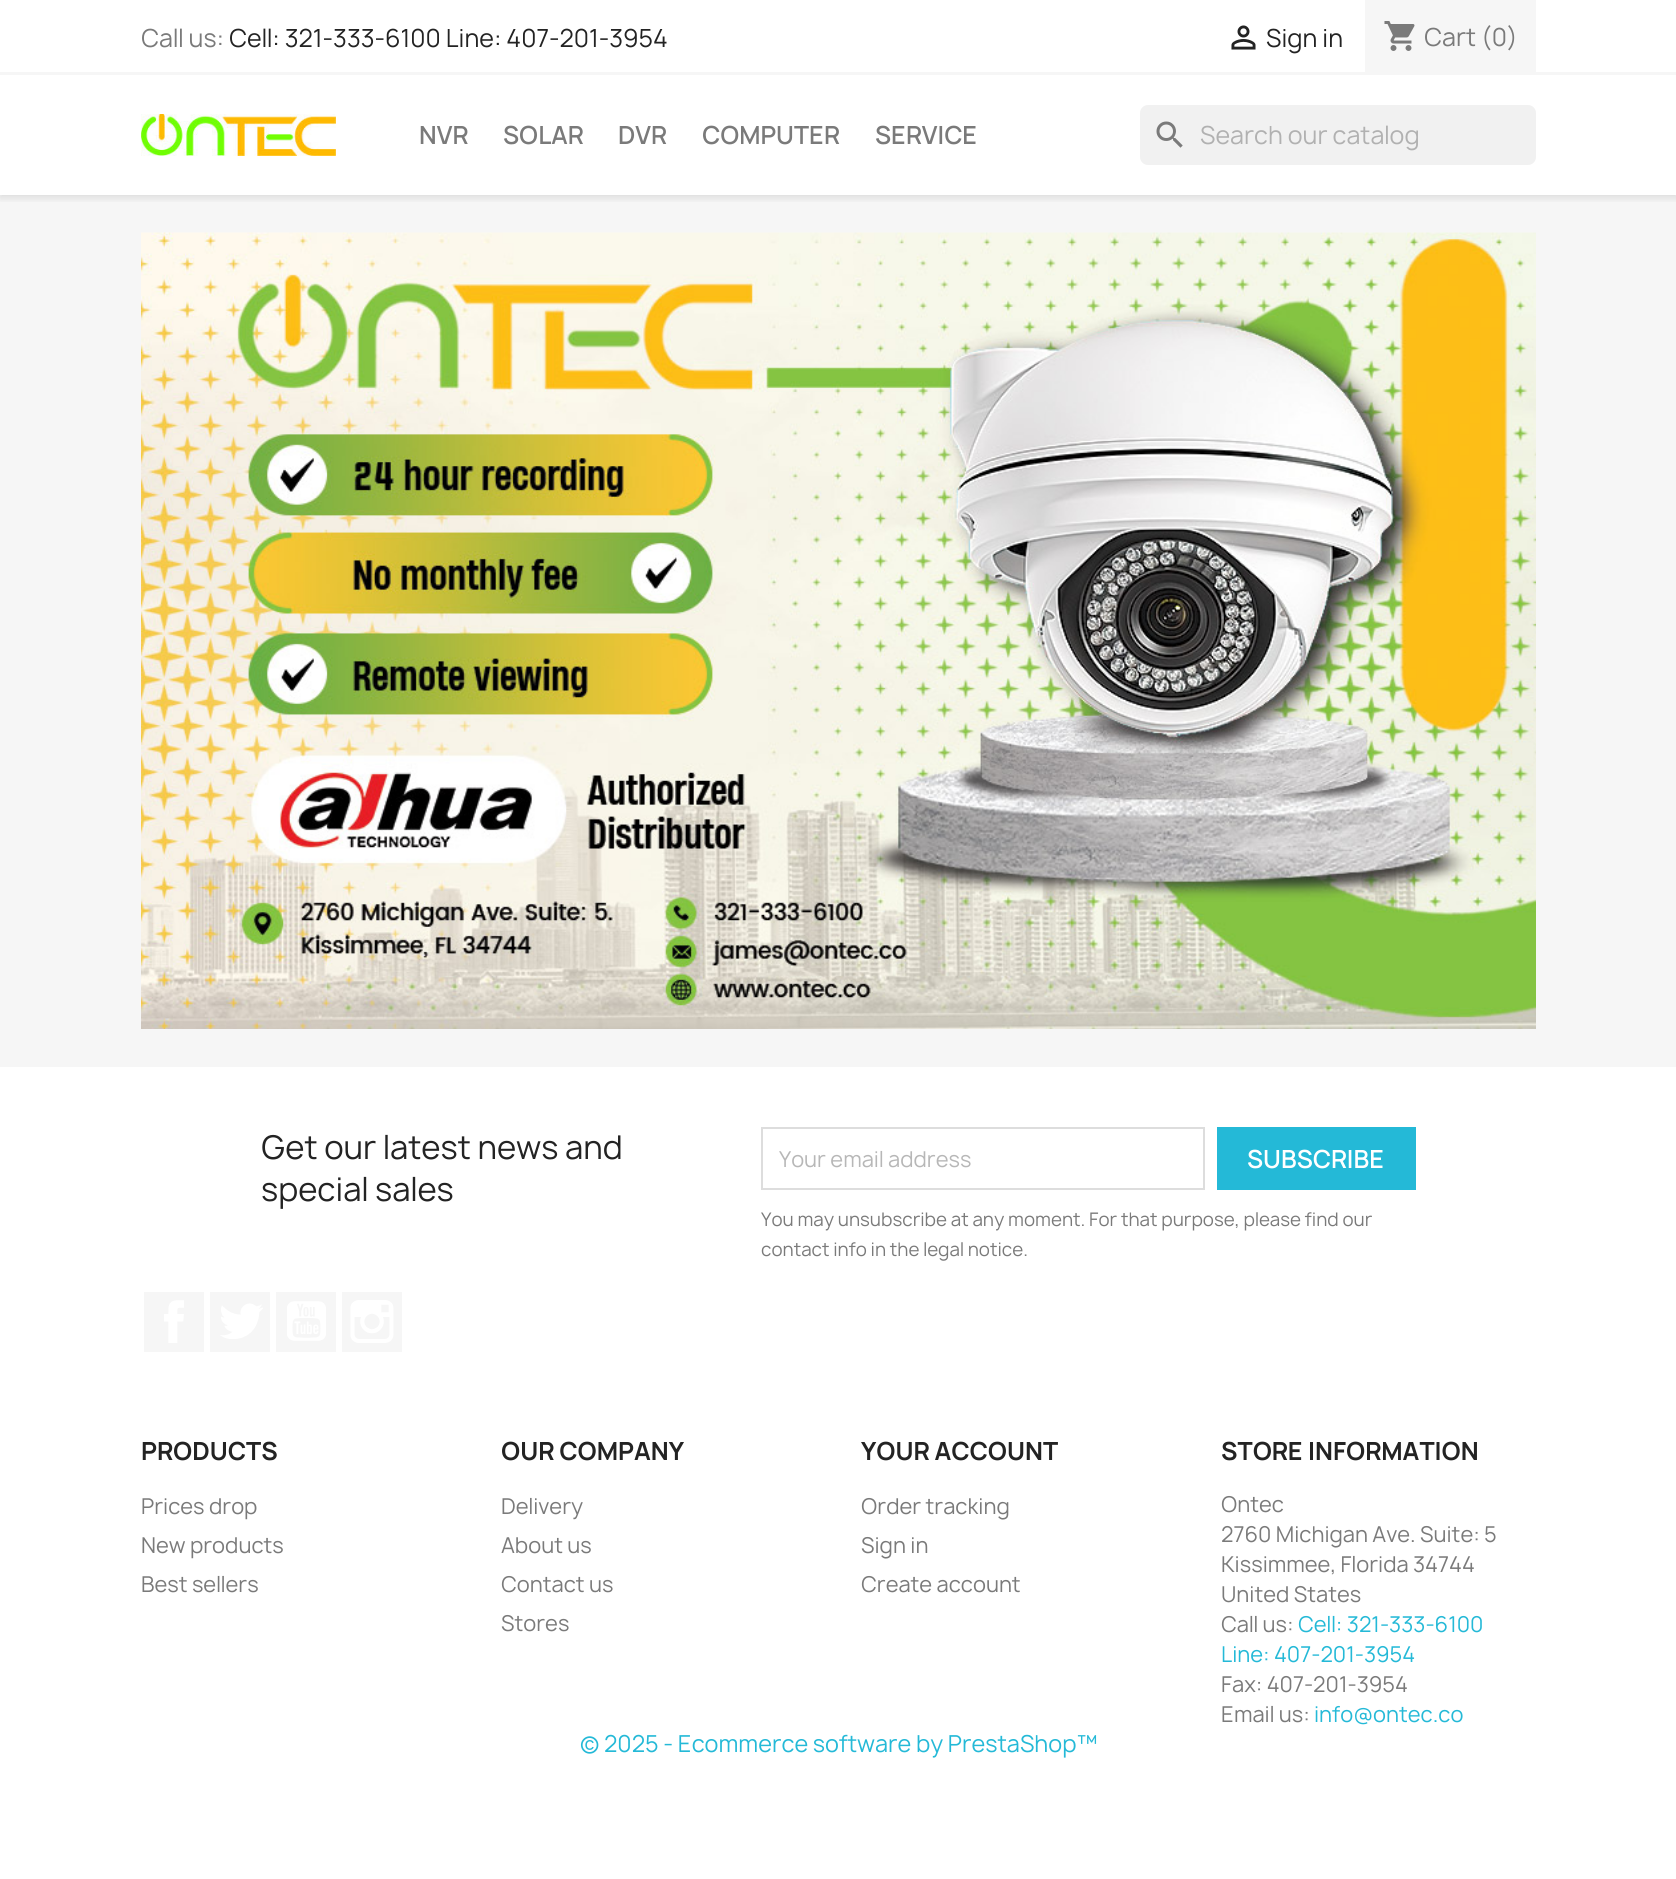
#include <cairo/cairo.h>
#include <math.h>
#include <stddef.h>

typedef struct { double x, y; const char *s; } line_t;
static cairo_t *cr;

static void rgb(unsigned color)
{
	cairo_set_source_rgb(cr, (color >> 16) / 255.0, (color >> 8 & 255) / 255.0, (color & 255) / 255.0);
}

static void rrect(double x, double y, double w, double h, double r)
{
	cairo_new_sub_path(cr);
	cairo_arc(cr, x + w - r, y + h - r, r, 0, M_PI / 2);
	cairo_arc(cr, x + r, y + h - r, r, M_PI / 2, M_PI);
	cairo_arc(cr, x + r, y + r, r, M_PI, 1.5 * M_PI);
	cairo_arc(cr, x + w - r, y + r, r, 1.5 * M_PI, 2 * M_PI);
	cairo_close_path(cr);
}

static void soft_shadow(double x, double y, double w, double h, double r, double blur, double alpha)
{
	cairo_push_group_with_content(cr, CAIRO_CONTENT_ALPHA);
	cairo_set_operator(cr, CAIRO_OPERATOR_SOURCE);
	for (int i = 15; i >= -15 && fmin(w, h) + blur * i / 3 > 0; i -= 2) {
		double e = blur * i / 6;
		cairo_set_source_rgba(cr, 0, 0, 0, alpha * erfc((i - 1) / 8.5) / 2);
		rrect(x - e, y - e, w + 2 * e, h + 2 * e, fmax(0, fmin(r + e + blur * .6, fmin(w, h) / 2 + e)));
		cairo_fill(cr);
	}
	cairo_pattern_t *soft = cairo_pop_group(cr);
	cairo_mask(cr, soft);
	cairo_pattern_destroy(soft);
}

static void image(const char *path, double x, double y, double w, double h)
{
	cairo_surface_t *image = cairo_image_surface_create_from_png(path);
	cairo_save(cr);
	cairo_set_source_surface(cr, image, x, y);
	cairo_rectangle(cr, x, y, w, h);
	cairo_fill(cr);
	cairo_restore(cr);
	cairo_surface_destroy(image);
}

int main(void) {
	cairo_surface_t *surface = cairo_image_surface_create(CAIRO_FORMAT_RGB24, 1676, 1879);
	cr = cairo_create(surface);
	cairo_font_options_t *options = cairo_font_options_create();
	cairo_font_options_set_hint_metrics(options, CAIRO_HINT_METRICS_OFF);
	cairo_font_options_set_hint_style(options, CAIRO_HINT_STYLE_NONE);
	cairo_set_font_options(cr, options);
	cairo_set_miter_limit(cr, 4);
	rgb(0xffffff);
	cairo_paint(cr);
	rgb(0xf6f6f6);
	cairo_rectangle(cr, 0, 195, 1676, 872);
	cairo_fill(cr);
	cairo_save(cr);
	cairo_rectangle(cr, 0, 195, 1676, 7);
	cairo_clip(cr);
	rgb(0x000000);
	soft_shadow(0, 3, 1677, 195, 0, 4, 0.11);
	cairo_restore(cr);
	cairo_rectangle(cr, 0, 72, 1676, 3);
	cairo_fill(cr);
	image("img/1.png", 1231, 25, 25, 25);
	cairo_rectangle(cr, 1365, 0, 171, 72);
	cairo_fill(cr);
	image("img/2.png", 1384, 21, 31, 30);
	image("img/3.png", 141, 114, 195, 42);
	rgb(0xf1f1f1);
	rrect(1140, 105, 396, 60, 8);
	cairo_fill(cr);
	image("img/4.png", 1156, 121, 27, 27);
	image("img/5.png", 141, 232, 1395, 797);
	cairo_rectangle(cr, 762, 1128, 442, 61);
	rgb(0xdddddd);
	cairo_stroke(cr);
	rgb(0x24b9d7);
	cairo_rectangle(cr, 1217, 1127, 199, 63);
	cairo_fill(cr);
	rgb(0xf6f6f6);
	cairo_rectangle(cr, 144, 1292, 60, 60);
	cairo_fill(cr);
	image("img/6.png", 164, 1300, 20, 43);
	cairo_rectangle(cr, 210, 1292, 60, 60);
	cairo_fill(cr);
	image("img/7.png", 220, 1303, 43, 36);
	cairo_rectangle(cr, 276, 1292, 60, 60);
	cairo_fill(cr);
	image("img/8.png", 287, 1301, 39, 40);
	cairo_rectangle(cr, 342, 1292, 60, 60);
	cairo_fill(cr);
	image("img/9.png", 350, 1300, 44, 43);
	cairo_select_font_face(cr, "Manrope", CAIRO_FONT_SLANT_NORMAL, CAIRO_FONT_WEIGHT_NORMAL);
	cairo_set_font_size(cr, 24);
	rgb(0x7a7a7a);
	cairo_move_to(cr, 141, 47);
	cairo_show_text(cr, "Call us:");
	rgb(0x232323);
	cairo_move_to(cr, 229, 47);
	cairo_show_text(cr, "Cell: 321-333-6100 Line: 407-201-3954");
	cairo_move_to(cr, 1266, 47);
	cairo_show_text(cr, "Sign in");
	rgb(0x7a7a7a);
	cairo_move_to(cr, 1424, 46);
	cairo_show_text(cr, "Cart (0)");
	cairo_select_font_face(cr, "Manrope SemiBold", CAIRO_FONT_SLANT_NORMAL, CAIRO_FONT_WEIGHT_NORMAL);
	{
		static const line_t items[] = {
			{419, 144, "NVR"},
			{503, 144, "SOLAR"},
			{618, 144, "DVR"},
			{702, 144, "COMPUTER"},
			{875, 144, "SERVICE"},
		};
		for (size_t i = 0; i < sizeof items / sizeof *items; i++) {
			cairo_move_to(cr, items[i].x, items[i].y);
			cairo_show_text(cr, items[i].s);
		}
	}
	cairo_select_font_face(cr, "Manrope", CAIRO_FONT_SLANT_NORMAL, CAIRO_FONT_WEIGHT_NORMAL);
	rgb(0xb1b1b1);
	cairo_move_to(cr, 1200, 144);
	cairo_show_text(cr, "Search our catalog");
	cairo_set_font_size(cr, 31.5);
	rgb(0x232323);
	cairo_move_to(cr, 261, 1159);
	cairo_show_text(cr, "Get our latest news and");
	cairo_move_to(cr, 261, 1201);
	cairo_show_text(cr, "special sales");
	cairo_set_font_size(cr, 21);
	rgb(0xb7b7b7);
	cairo_move_to(cr, 779, 1167);
	cairo_show_text(cr, "Your email address");
	cairo_select_font_face(cr, "Manrope SemiBold", CAIRO_FONT_SLANT_NORMAL, CAIRO_FONT_WEIGHT_NORMAL);
	cairo_set_font_size(cr, 24);
	rgb(0xffffff);
	cairo_move_to(cr, 1247, 1168);
	cairo_show_text(cr, "SUBSCRIBE");
	cairo_select_font_face(cr, "Manrope", CAIRO_FONT_SLANT_NORMAL, CAIRO_FONT_WEIGHT_NORMAL);
	cairo_set_font_size(cr, 18);
	rgb(0x7a7a7a);
	cairo_move_to(cr, 761, 1226);
	cairo_show_text(cr, "You may unsubscribe at any moment. For that purpose, please find our");
	cairo_move_to(cr, 761, 1256);
	cairo_show_text(cr, "contact info in the legal notice.");
	cairo_select_font_face(cr, "Manrope", CAIRO_FONT_SLANT_NORMAL, CAIRO_FONT_WEIGHT_BOLD);
	cairo_set_font_size(cr, 24);
	rgb(0x232323);
	cairo_move_to(cr, 141, 1460);
	cairo_show_text(cr, "PRODUCTS");
	cairo_select_font_face(cr, "Manrope", CAIRO_FONT_SLANT_NORMAL, CAIRO_FONT_WEIGHT_NORMAL);
	cairo_set_font_size(cr, 21);
	rgb(0x7a7a7a);
	{
		static const line_t items[] = {
			{141, 1514, "Prices drop"},
			{141, 1553, "New products"},
			{141, 1592, "Best sellers"},
		};
		for (size_t i = 0; i < sizeof items / sizeof *items; i++) {
			cairo_move_to(cr, items[i].x, items[i].y);
			cairo_show_text(cr, items[i].s);
		}
	}
	cairo_select_font_face(cr, "Manrope", CAIRO_FONT_SLANT_NORMAL, CAIRO_FONT_WEIGHT_BOLD);
	cairo_set_font_size(cr, 24);
	rgb(0x232323);
	cairo_move_to(cr, 501, 1460);
	cairo_show_text(cr, "OUR COMPANY");
	cairo_select_font_face(cr, "Manrope", CAIRO_FONT_SLANT_NORMAL, CAIRO_FONT_WEIGHT_NORMAL);
	cairo_set_font_size(cr, 21);
	rgb(0x7a7a7a);
	{
		static const line_t items[] = {
			{501, 1514, "Delivery"},
			{501, 1553, "About us"},
			{501, 1592, "Contact us"},
			{501, 1631, "Stores"},
		};
		for (size_t i = 0; i < sizeof items / sizeof *items; i++) {
			cairo_move_to(cr, items[i].x, items[i].y);
			cairo_show_text(cr, items[i].s);
		}
	}
	cairo_select_font_face(cr, "Manrope", CAIRO_FONT_SLANT_NORMAL, CAIRO_FONT_WEIGHT_BOLD);
	cairo_set_font_size(cr, 24);
	rgb(0x232323);
	cairo_move_to(cr, 861, 1460);
	cairo_show_text(cr, "YOUR ACCOUNT");
	cairo_select_font_face(cr, "Manrope", CAIRO_FONT_SLANT_NORMAL, CAIRO_FONT_WEIGHT_NORMAL);
	cairo_set_font_size(cr, 21);
	rgb(0x7a7a7a);
	{
		static const line_t items[] = {
			{861, 1514, "Order tracking"},
			{861, 1553, "Sign in"},
			{861, 1592, "Create account"},
		};
		for (size_t i = 0; i < sizeof items / sizeof *items; i++) {
			cairo_move_to(cr, items[i].x, items[i].y);
			cairo_show_text(cr, items[i].s);
		}
	}
	cairo_select_font_face(cr, "Manrope", CAIRO_FONT_SLANT_NORMAL, CAIRO_FONT_WEIGHT_BOLD);
	cairo_set_font_size(cr, 24);
	rgb(0x232323);
	cairo_move_to(cr, 1221, 1460);
	cairo_show_text(cr, "STORE INFORMATION");
	cairo_select_font_face(cr, "Manrope", CAIRO_FONT_SLANT_NORMAL, CAIRO_FONT_WEIGHT_NORMAL);
	cairo_set_font_size(cr, 21);
	rgb(0x7a7a7a);
	{
		static const line_t items[] = {
			{1221, 1512, "Ontec"},
			{1221, 1542, "2760 Michigan Ave. Suite: 5"},
			{1221, 1572, "Kissimmee, Florida 34744"},
			{1221, 1602, "United States"},
			{1221, 1632, "Call us:"},
		};
		for (size_t i = 0; i < sizeof items / sizeof *items; i++) {
			cairo_move_to(cr, items[i].x, items[i].y);
			cairo_show_text(cr, items[i].s);
		}
	}
	rgb(0x24b9d7);
	cairo_move_to(cr, 1298, 1632);
	cairo_show_text(cr, "Cell: 321-333-6100");
	cairo_move_to(cr, 1221, 1662);
	cairo_show_text(cr, "Line: 407-201-3954");
	rgb(0x7a7a7a);
	cairo_move_to(cr, 1221, 1692);
	cairo_show_text(cr, "Fax: 407-201-3954");
	cairo_move_to(cr, 1221, 1722);
	cairo_show_text(cr, "Email us:");
	rgb(0x24b9d7);
	cairo_move_to(cr, 1314, 1722);
	cairo_show_text(cr, "info@ontec.co");
	cairo_set_font_size(cr, 22.5);
	cairo_move_to(cr, 580, 1752);
	cairo_show_text(cr, "© 2025 - Ecommerce software by PrestaShop™");
	cairo_surface_write_to_png(surface, "page.png");
	cairo_font_options_destroy(options);
	cairo_destroy(cr);
	cairo_surface_destroy(surface);
	return 0;
}
